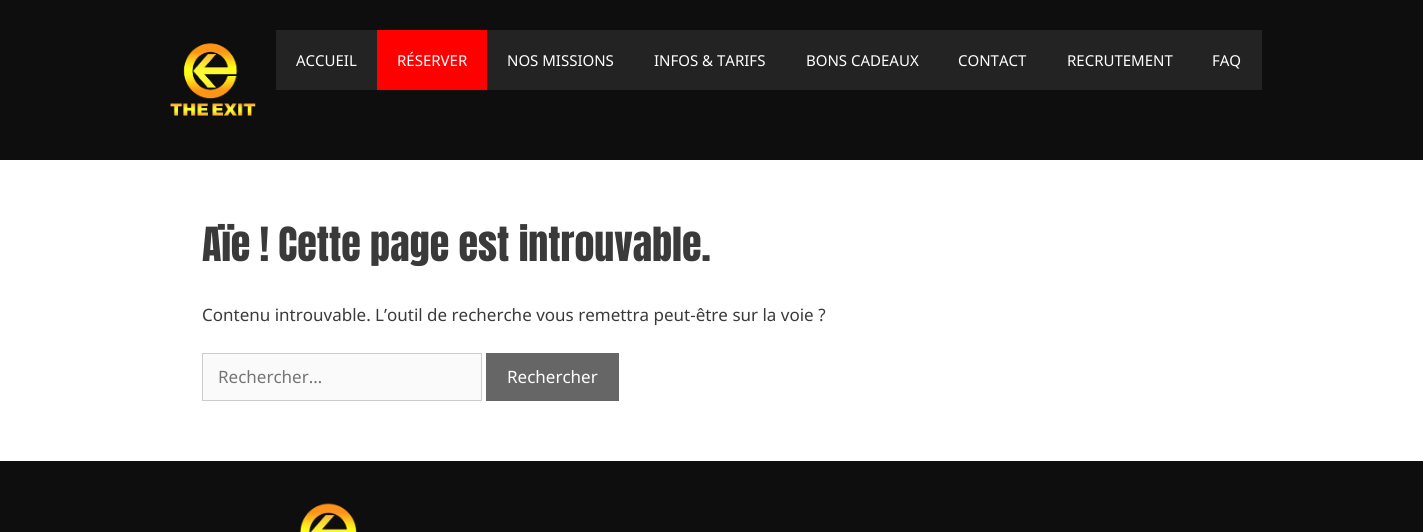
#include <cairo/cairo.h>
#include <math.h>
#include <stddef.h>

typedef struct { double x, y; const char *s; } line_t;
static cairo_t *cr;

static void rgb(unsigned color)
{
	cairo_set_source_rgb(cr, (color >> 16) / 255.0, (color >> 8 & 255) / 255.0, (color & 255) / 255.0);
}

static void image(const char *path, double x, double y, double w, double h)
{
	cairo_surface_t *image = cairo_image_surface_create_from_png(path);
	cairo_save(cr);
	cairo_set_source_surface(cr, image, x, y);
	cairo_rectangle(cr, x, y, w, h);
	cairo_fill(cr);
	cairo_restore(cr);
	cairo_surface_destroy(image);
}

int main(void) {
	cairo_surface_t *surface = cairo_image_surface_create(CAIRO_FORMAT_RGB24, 1423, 532);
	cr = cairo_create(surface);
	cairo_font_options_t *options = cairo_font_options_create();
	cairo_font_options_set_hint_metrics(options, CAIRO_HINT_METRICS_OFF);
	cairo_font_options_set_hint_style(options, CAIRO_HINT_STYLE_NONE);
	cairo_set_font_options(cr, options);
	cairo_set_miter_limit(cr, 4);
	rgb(0xffffff);
	cairo_paint(cr);
	rgb(0x0e0e0e);
	cairo_rectangle(cr, 0, 0, 1423, 160);
	cairo_fill(cr);
	image("img/1.png", 170, 43, 86, 74);
	rgb(0x232323);
	cairo_rectangle(cr, 276, 30, 986, 60);
	cairo_fill(cr);
	rgb(0xff0000);
	cairo_rectangle(cr, 377, 30, 110, 60);
	cairo_fill(cr);
	rgb(0xfafafa);
	cairo_rectangle(cr, 202.5, 353.5, 279, 47);
	cairo_fill_preserve(cr);
	rgb(0xcccccc);
	cairo_set_line_width(cr, 1);
	cairo_stroke(cr);
	rgb(0x666666);
	cairo_rectangle(cr, 486, 353, 133, 48);
	cairo_fill(cr);
	rgb(0x0e0e0e);
	cairo_rectangle(cr, 0, 461, 1423, 71);
	cairo_fill(cr);
	image("img/2.png", 299, 503, 58, 29);
	cairo_select_font_face(cr, "Noto Sans", CAIRO_FONT_SLANT_NORMAL, CAIRO_FONT_WEIGHT_NORMAL);
	cairo_set_font_size(cr, 15);
	rgb(0xffffff);
	{
		static const line_t items[] = {
			{296, 66, "ACCUEIL"},
			{397, 66, "RÉSERVER"},
			{507, 66, "NOS MISSIONS"},
			{654, 66, "INFOS & TARIFS"},
			{806, 66, "BONS CADEAUX"},
			{958, 66, "CONTACT"},
			{1067, 66, "RECRUTEMENT"},
			{1212, 66, "FAQ"},
		};
		for (size_t i = 0; i < sizeof items / sizeof *items; i++) {
			cairo_move_to(cr, items[i].x, items[i].y);
			cairo_show_text(cr, items[i].s);
		}
	}
	cairo_select_font_face(cr, "Anton", CAIRO_FONT_SLANT_NORMAL, CAIRO_FONT_WEIGHT_NORMAL);
	cairo_set_font_size(cr, 40);
	rgb(0x3a3a3a);
	cairo_move_to(cr, 202, 261);
	cairo_show_text(cr, "Aïe ! Cette page est introuvable.");
	cairo_select_font_face(cr, "Noto Sans", CAIRO_FONT_SLANT_NORMAL, CAIRO_FONT_WEIGHT_NORMAL);
	cairo_set_font_size(cr, 17);
	cairo_move_to(cr, 202, 321);
	cairo_show_text(cr, "Contenu introuvable. L’outil de recherche vous remettra peut-être sur la voie ?");
	rgb(0x757575);
	cairo_move_to(cr, 218, 383);
	cairo_show_text(cr, "Rechercher…");
	rgb(0xffffff);
	cairo_move_to(cr, 507, 383);
	cairo_show_text(cr, "Rechercher");
	cairo_surface_write_to_png(surface, "page.png");
	cairo_font_options_destroy(options);
	cairo_destroy(cr);
	cairo_surface_destroy(surface);
	return 0;
}
